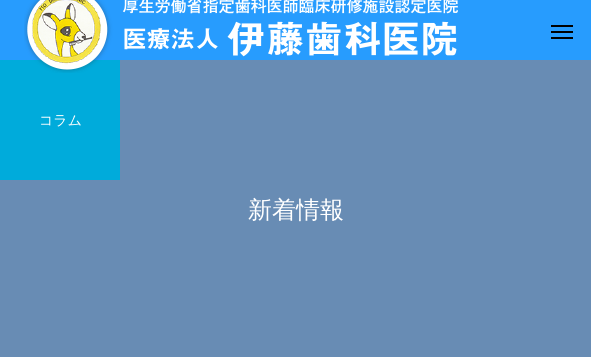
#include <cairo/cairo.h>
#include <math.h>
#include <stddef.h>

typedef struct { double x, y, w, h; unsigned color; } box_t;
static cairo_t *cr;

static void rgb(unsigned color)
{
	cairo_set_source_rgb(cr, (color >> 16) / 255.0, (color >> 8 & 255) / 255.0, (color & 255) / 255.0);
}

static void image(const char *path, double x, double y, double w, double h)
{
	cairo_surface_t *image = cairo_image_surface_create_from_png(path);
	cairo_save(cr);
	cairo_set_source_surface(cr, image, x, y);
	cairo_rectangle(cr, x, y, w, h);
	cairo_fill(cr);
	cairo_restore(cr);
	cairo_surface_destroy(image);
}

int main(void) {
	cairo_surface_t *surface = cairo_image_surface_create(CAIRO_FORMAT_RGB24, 591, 357);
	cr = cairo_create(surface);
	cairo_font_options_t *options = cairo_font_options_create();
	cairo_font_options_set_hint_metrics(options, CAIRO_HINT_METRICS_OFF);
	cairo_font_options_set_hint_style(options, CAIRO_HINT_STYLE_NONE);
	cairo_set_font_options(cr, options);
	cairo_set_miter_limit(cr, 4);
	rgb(0x688cb4);
	cairo_paint(cr);
	rgb(0x279cfe);
	cairo_rectangle(cr, 0, 0, 591, 60);
	cairo_fill(cr);
	rgb(0x00abdb);
	cairo_rectangle(cr, 0, 60, 120, 120);
	cairo_fill(cr);
	image("img/1.png", 24, 0, 434, 73);
	{
		static const box_t items[] = {
			{551, 25, 22, 2, 0x000000},
			{551, 31, 22, 2, 0x000000},
			{551, 37, 22, 2, 0x000000},
		};
		for (size_t i = 0; i < sizeof items / sizeof *items; i++) {
			rgb(items[i].color);
			cairo_rectangle(cr, items[i].x, items[i].y, items[i].w, items[i].h);
			cairo_fill(cr);
		}
	}
	cairo_select_font_face(cr, "WenQuanYi Zen Hei Medium", CAIRO_FONT_SLANT_NORMAL, CAIRO_FONT_WEIGHT_NORMAL);
	cairo_set_font_size(cr, 14);
	rgb(0xffffff);
	cairo_move_to(cr, 39, 125);
	cairo_show_text(cr, "コラム");
	cairo_set_font_size(cr, 24);
	cairo_move_to(cr, 248, 218);
	cairo_show_text(cr, "新着情報");
	cairo_surface_write_to_png(surface, "page.png");
	cairo_font_options_destroy(options);
	cairo_destroy(cr);
	cairo_surface_destroy(surface);
	return 0;
}
